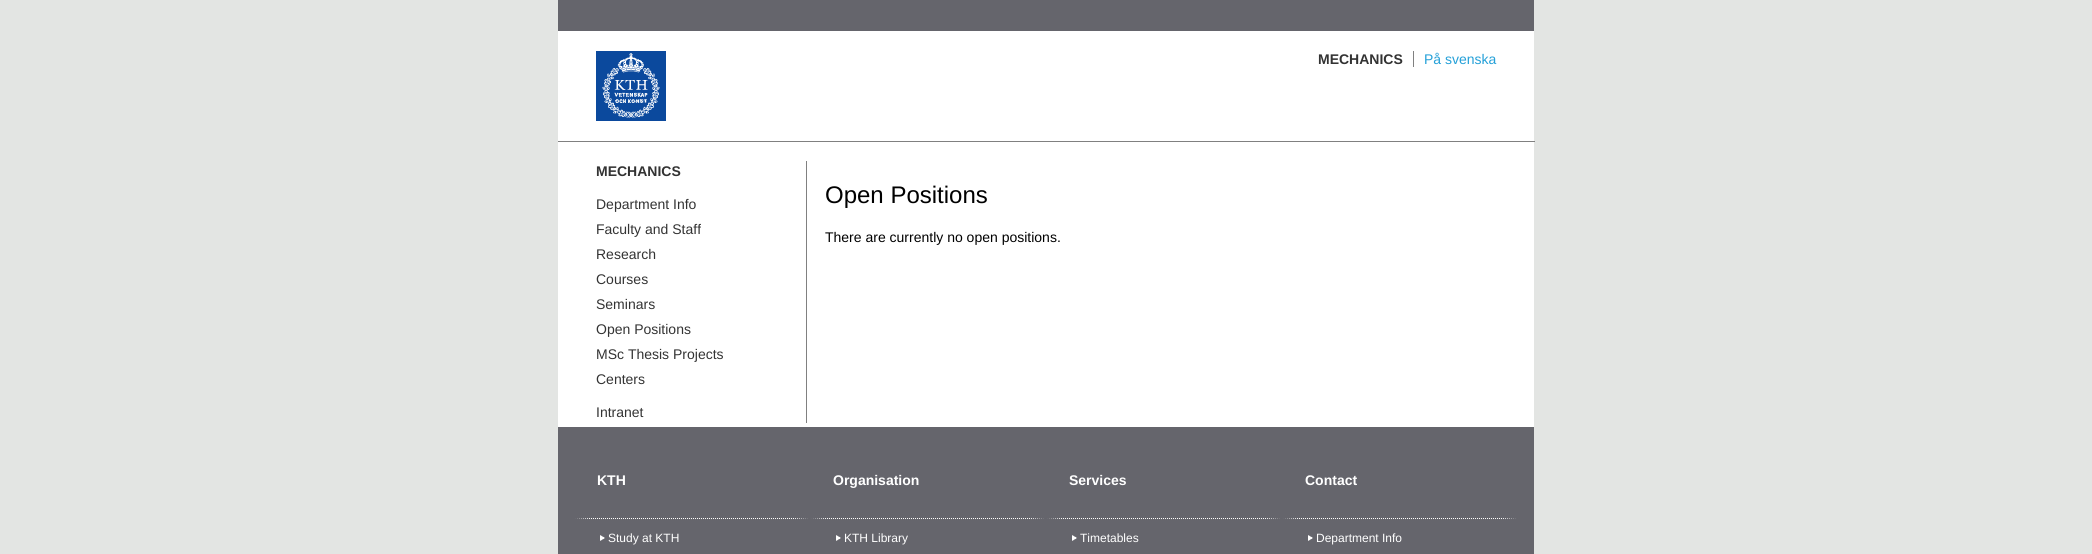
#include <cairo/cairo.h>
#include <math.h>
#include <stddef.h>

typedef struct { double x, y; const char *s; } line_t;
typedef struct { double x, y, w, h; unsigned color; } box_t;
static cairo_t *cr;

static void rgb(unsigned color)
{
	cairo_set_source_rgb(cr, (color >> 16) / 255.0, (color >> 8 & 255) / 255.0, (color & 255) / 255.0);
}

static void image(const char *path, double x, double y, double w, double h)
{
	cairo_surface_t *image = cairo_image_surface_create_from_png(path);
	cairo_save(cr);
	cairo_set_source_surface(cr, image, x, y);
	cairo_rectangle(cr, x, y, w, h);
	cairo_fill(cr);
	cairo_restore(cr);
	cairo_surface_destroy(image);
}

int main(void) {
	cairo_surface_t *surface = cairo_image_surface_create(CAIRO_FORMAT_RGB24, 2092, 554);
	cr = cairo_create(surface);
	cairo_font_options_t *options = cairo_font_options_create();
	cairo_font_options_set_hint_metrics(options, CAIRO_HINT_METRICS_OFF);
	cairo_font_options_set_hint_style(options, CAIRO_HINT_STYLE_NONE);
	cairo_set_font_options(cr, options);
	cairo_set_miter_limit(cr, 4);
	rgb(0xe3e5e3);
	cairo_paint(cr);
	rgb(0xffffff);
	cairo_rectangle(cr, 558, 31, 976, 396);
	cairo_fill(cr);
	rgb(0x65656c);
	cairo_rectangle(cr, 558, 0, 976, 31);
	cairo_fill(cr);
	image("img/1.png", 596, 51, 70, 70);
	{
		static const box_t items[] = {
			{1413, 51, 1, 16, 0x808080},
			{558, 141, 977, 1, 0x808080},
			{806, 161, 1, 262, 0x808080},
			{558, 427, 976, 127, 0x65656c},
		};
		for (size_t i = 0; i < sizeof items / sizeof *items; i++) {
			rgb(items[i].color);
			cairo_rectangle(cr, items[i].x, items[i].y, items[i].w, items[i].h);
			cairo_fill(cr);
		}
	}
	cairo_new_path(cr);
	cairo_move_to(cr, 575, 518.5);
	cairo_line_to(cr, 809, 518.5);
	rgb(0xffffff);
	cairo_set_line_width(cr, 1);
	cairo_set_dash(cr, (double[]){1, 1}, 2, 0);
	cairo_stroke(cr);
	rgb(0x65656c);
	cairo_new_path(cr);
	cairo_move_to(cr, 809, 518);
	cairo_line_to(cr, 809, 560);
	cairo_line_to(cr, 794, 552);
	cairo_line_to(cr, 794, 519);
	cairo_close_path(cr);
	cairo_fill(cr);
	cairo_new_path(cr);
	cairo_move_to(cr, 575, 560);
	cairo_line_to(cr, 575, 518);
	cairo_line_to(cr, 590, 519);
	cairo_line_to(cr, 590, 552);
	cairo_close_path(cr);
	cairo_fill(cr);
	image("img/2.png", 600, 535, 5, 6);
	cairo_new_path(cr);
	cairo_move_to(cr, 811, 518.5);
	cairo_line_to(cr, 1045, 518.5);
	rgb(0xffffff);
	cairo_stroke(cr);
	rgb(0x65656c);
	cairo_new_path(cr);
	cairo_move_to(cr, 1045, 518);
	cairo_line_to(cr, 1045, 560);
	cairo_line_to(cr, 1030, 552);
	cairo_line_to(cr, 1030, 519);
	cairo_close_path(cr);
	cairo_fill(cr);
	cairo_new_path(cr);
	cairo_move_to(cr, 811, 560);
	cairo_line_to(cr, 811, 518);
	cairo_line_to(cr, 826, 519);
	cairo_line_to(cr, 826, 552);
	cairo_close_path(cr);
	cairo_fill(cr);
	image("img/2.png", 836, 535, 5, 6);
	cairo_new_path(cr);
	cairo_move_to(cr, 1047, 518.5);
	cairo_line_to(cr, 1281, 518.5);
	rgb(0xffffff);
	cairo_stroke(cr);
	rgb(0x65656c);
	cairo_new_path(cr);
	cairo_move_to(cr, 1281, 518);
	cairo_line_to(cr, 1281, 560);
	cairo_line_to(cr, 1266, 552);
	cairo_line_to(cr, 1266, 519);
	cairo_close_path(cr);
	cairo_fill(cr);
	cairo_new_path(cr);
	cairo_move_to(cr, 1047, 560);
	cairo_line_to(cr, 1047, 518);
	cairo_line_to(cr, 1062, 519);
	cairo_line_to(cr, 1062, 552);
	cairo_close_path(cr);
	cairo_fill(cr);
	image("img/2.png", 1072, 535, 5, 6);
	cairo_new_path(cr);
	cairo_move_to(cr, 1283, 518.5);
	cairo_line_to(cr, 1517, 518.5);
	rgb(0xffffff);
	cairo_stroke(cr);
	rgb(0x65656c);
	cairo_new_path(cr);
	cairo_move_to(cr, 1517, 518);
	cairo_line_to(cr, 1517, 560);
	cairo_line_to(cr, 1502, 552);
	cairo_line_to(cr, 1502, 519);
	cairo_close_path(cr);
	cairo_fill(cr);
	cairo_new_path(cr);
	cairo_move_to(cr, 1283, 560);
	cairo_line_to(cr, 1283, 518);
	cairo_line_to(cr, 1298, 519);
	cairo_line_to(cr, 1298, 552);
	cairo_close_path(cr);
	cairo_fill(cr);
	image("img/2.png", 1308, 535, 5, 6);
	cairo_select_font_face(cr, "Liberation Sans", CAIRO_FONT_SLANT_NORMAL, CAIRO_FONT_WEIGHT_BOLD);
	cairo_set_font_size(cr, 14);
	rgb(0x333333);
	cairo_move_to(cr, 1318, 64);
	cairo_show_text(cr, "MECHANICS");
	cairo_select_font_face(cr, "Liberation Sans", CAIRO_FONT_SLANT_NORMAL, CAIRO_FONT_WEIGHT_NORMAL);
	rgb(0x24a0d8);
	cairo_move_to(cr, 1424, 64);
	cairo_show_text(cr, "På svenska");
	cairo_select_font_face(cr, "Liberation Sans", CAIRO_FONT_SLANT_NORMAL, CAIRO_FONT_WEIGHT_BOLD);
	rgb(0x333333);
	cairo_move_to(cr, 596, 176);
	cairo_show_text(cr, "MECHANICS");
	cairo_select_font_face(cr, "Liberation Sans", CAIRO_FONT_SLANT_NORMAL, CAIRO_FONT_WEIGHT_NORMAL);
	{
		static const line_t items[] = {
			{596, 209, "Department Info"},
			{596, 234, "Faculty and Staff"},
			{596, 259, "Research"},
			{596, 284, "Courses"},
			{596, 309, "Seminars"},
			{596, 334, "Open Positions"},
			{596, 359, "MSc Thesis Projects"},
			{596, 384, "Centers"},
			{596, 417, "Intranet"},
		};
		for (size_t i = 0; i < sizeof items / sizeof *items; i++) {
			cairo_move_to(cr, items[i].x, items[i].y);
			cairo_show_text(cr, items[i].s);
		}
	}
	cairo_set_font_size(cr, 24);
	rgb(0x000000);
	cairo_move_to(cr, 825, 203);
	cairo_show_text(cr, "Open Positions");
	cairo_set_font_size(cr, 14);
	cairo_move_to(cr, 825, 242);
	cairo_show_text(cr, "There are currently no open positions.");
	cairo_select_font_face(cr, "Liberation Sans", CAIRO_FONT_SLANT_NORMAL, CAIRO_FONT_WEIGHT_BOLD);
	rgb(0xffffff);
	{
		static const line_t items[] = {
			{597, 485, "KTH"},
			{833, 485, "Organisation"},
			{1069, 485, "Services"},
			{1305, 485, "Contact"},
		};
		for (size_t i = 0; i < sizeof items / sizeof *items; i++) {
			cairo_move_to(cr, items[i].x, items[i].y);
			cairo_show_text(cr, items[i].s);
		}
	}
	cairo_select_font_face(cr, "Liberation Sans", CAIRO_FONT_SLANT_NORMAL, CAIRO_FONT_WEIGHT_NORMAL);
	cairo_set_font_size(cr, 12);
	{
		static const line_t items[] = {
			{608, 542, "Study at KTH"},
			{844, 542, "KTH Library"},
			{1080, 542, "Timetables"},
			{1316, 542, "Department Info"},
		};
		for (size_t i = 0; i < sizeof items / sizeof *items; i++) {
			cairo_move_to(cr, items[i].x, items[i].y);
			cairo_show_text(cr, items[i].s);
		}
	}
	cairo_surface_write_to_png(surface, "page.png");
	cairo_font_options_destroy(options);
	cairo_destroy(cr);
	cairo_surface_destroy(surface);
	return 0;
}
